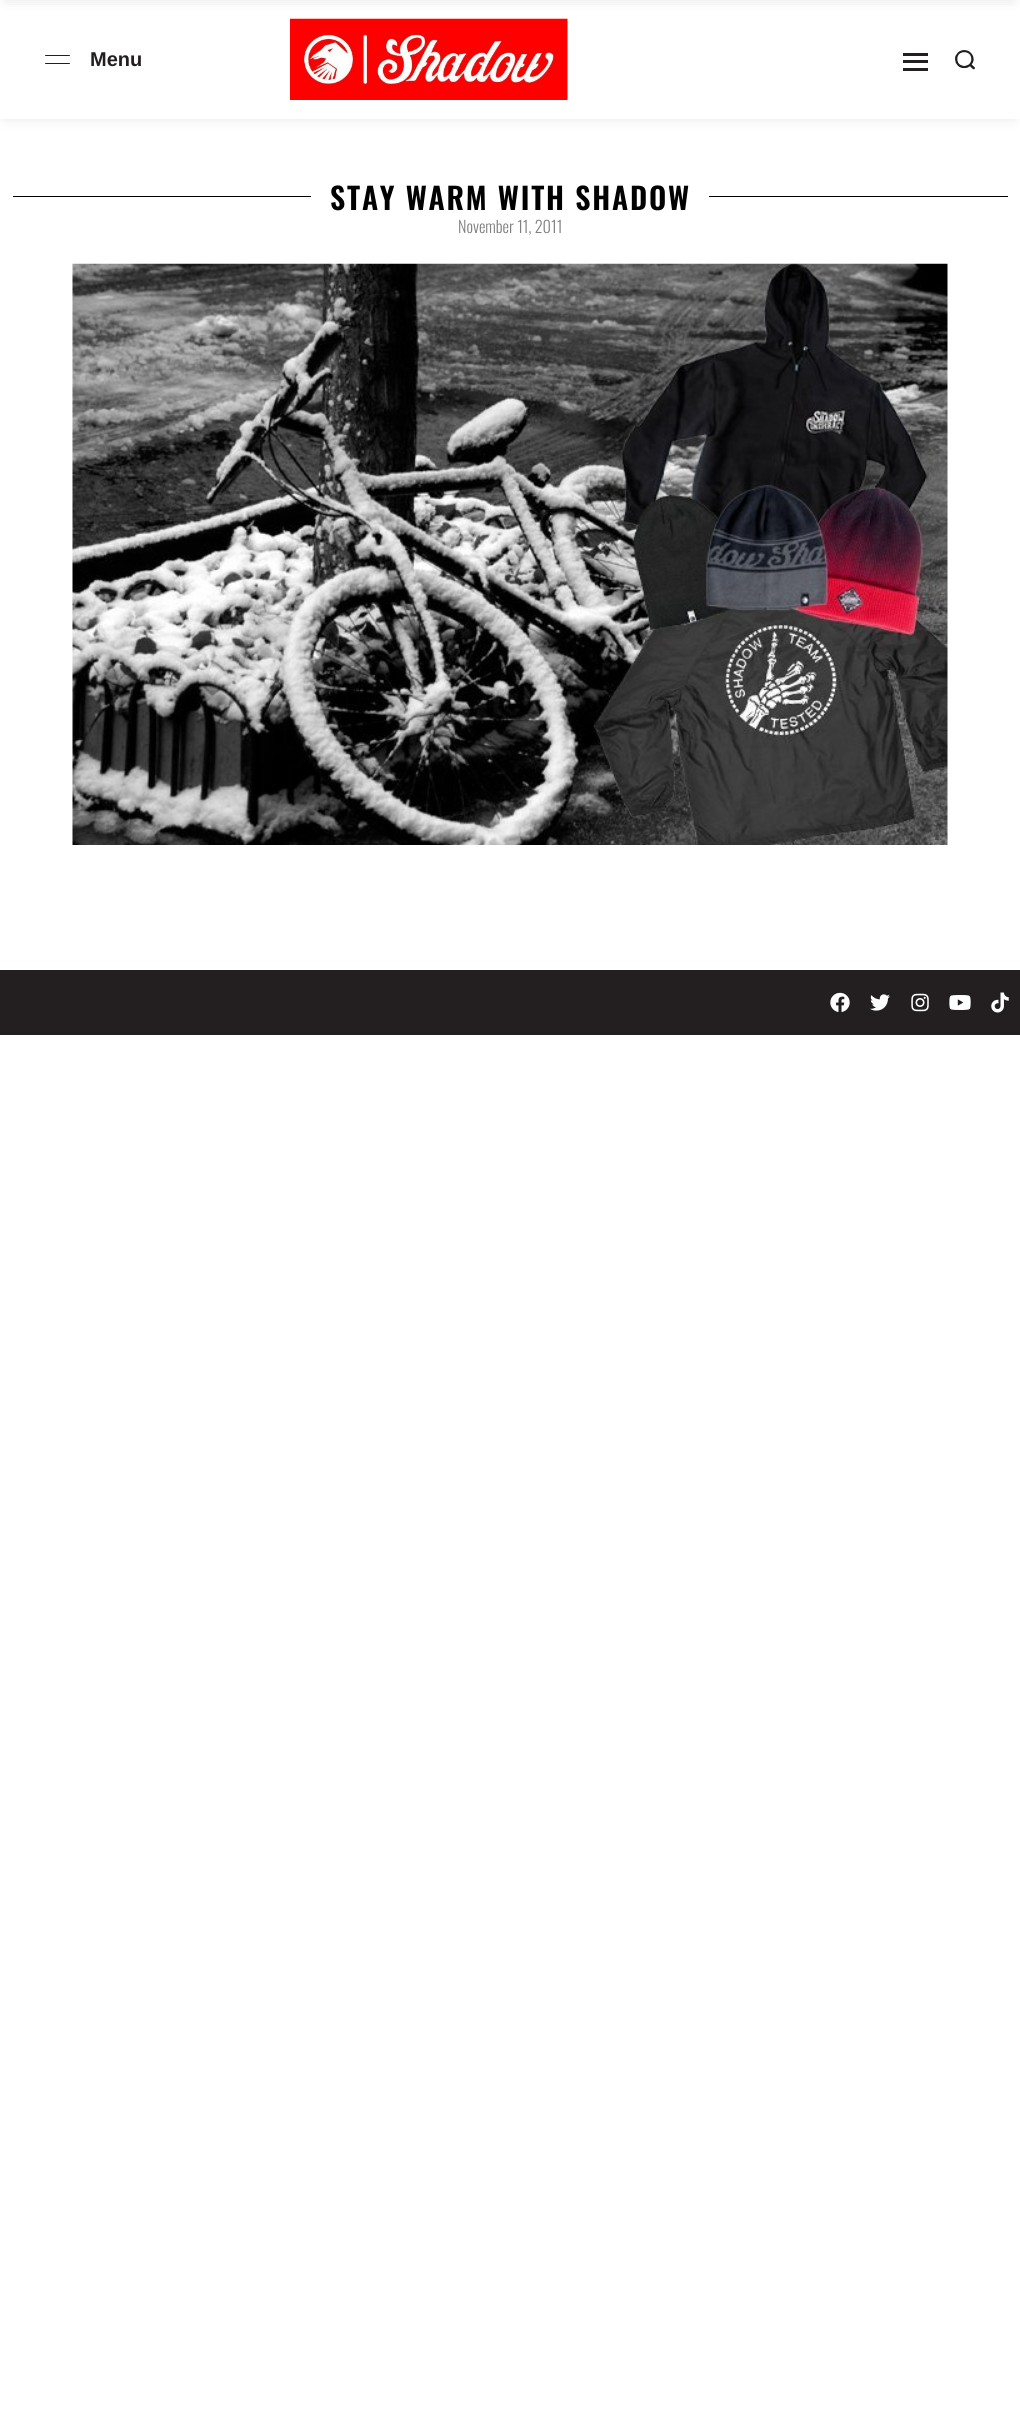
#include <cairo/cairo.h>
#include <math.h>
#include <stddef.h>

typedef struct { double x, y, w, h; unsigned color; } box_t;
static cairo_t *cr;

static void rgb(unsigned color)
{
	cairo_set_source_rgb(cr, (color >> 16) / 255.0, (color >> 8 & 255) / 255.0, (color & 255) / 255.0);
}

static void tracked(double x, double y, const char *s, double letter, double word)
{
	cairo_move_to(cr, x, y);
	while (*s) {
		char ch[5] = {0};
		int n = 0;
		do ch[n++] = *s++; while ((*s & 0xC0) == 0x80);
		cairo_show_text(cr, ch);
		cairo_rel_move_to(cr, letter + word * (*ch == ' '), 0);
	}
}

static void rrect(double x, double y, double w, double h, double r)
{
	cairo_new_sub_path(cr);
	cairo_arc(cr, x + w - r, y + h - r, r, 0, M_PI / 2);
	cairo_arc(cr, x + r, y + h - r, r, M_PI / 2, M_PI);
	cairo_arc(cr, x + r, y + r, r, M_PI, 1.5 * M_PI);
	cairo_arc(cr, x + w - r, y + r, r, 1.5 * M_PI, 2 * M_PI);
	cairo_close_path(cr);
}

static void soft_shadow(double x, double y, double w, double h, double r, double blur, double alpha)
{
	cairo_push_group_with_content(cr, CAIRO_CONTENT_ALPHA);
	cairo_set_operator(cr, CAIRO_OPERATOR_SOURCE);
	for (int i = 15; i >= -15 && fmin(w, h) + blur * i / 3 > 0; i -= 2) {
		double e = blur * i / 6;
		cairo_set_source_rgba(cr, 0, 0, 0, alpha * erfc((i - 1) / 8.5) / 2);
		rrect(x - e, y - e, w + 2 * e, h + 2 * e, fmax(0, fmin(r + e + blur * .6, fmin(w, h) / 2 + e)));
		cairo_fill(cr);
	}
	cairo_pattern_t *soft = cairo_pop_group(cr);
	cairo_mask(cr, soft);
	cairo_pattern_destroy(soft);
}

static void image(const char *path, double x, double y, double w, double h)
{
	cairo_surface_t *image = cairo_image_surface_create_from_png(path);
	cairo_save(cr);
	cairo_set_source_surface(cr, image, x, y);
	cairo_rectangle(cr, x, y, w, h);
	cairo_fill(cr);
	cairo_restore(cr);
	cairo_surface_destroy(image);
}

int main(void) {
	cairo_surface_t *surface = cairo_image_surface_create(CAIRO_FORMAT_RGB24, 1020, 2435);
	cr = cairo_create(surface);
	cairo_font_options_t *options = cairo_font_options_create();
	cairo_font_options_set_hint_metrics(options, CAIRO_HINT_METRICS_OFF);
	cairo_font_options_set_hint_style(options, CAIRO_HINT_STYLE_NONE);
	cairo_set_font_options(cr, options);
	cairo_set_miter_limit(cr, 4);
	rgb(0xffffff);
	cairo_paint(cr);
	rgb(0x000000);
	soft_shadow(6, 13, 1008, 106, 0, 6, 0.1);
	rgb(0xffffff);
	cairo_rectangle(cr, 0, 5, 1020, 114);
	cairo_fill(cr);
	image("img/1.png", 290, 18, 278, 82);
	rgb(0x000000);
	soft_shadow(6, -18, 1008, 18, 0, 6, 0.1);
	rgb(0x231f20);
	rrect(45, 55, 25, 1, 0.5);
	cairo_fill(cr);
	rrect(45, 63, 25, 1, 0.5);
	cairo_fill(cr);
	{
		static const box_t items[] = {
			{903, 53, 25, 3, 0x231f20},
			{903, 60, 25, 3, 0x231f20},
			{903, 68, 25, 3, 0x231f20},
		};
		for (size_t i = 0; i < sizeof items / sizeof *items; i++) {
			rgb(items[i].color);
			cairo_rectangle(cr, items[i].x, items[i].y, items[i].w, items[i].h);
			cairo_fill(cr);
		}
	}
	image("img/2.png", 955, 50, 20, 20);
	rgb(0x000000);
	cairo_rectangle(cr, 13, 196, 298, 1);
	cairo_fill(cr);
	cairo_rectangle(cr, 709, 196, 299, 1);
	cairo_fill(cr);
	image("img/3.png", 72, 263, 876, 582);
	rgb(0x231f20);
	cairo_rectangle(cr, 0, 970, 1020, 65);
	cairo_fill(cr);
	image("img/4.png", 830, 992, 20, 20);
	image("img/5.png", 870, 994, 20, 17);
	image("img/6.png", 911, 993, 18, 19);
	image("img/7.png", 949, 995, 22, 15);
	image("img/8.png", 991, 992, 18, 21);
	cairo_select_font_face(cr, "Liberation Sans", CAIRO_FONT_SLANT_NORMAL, CAIRO_FONT_WEIGHT_BOLD);
	cairo_set_font_size(cr, 20);
	cairo_move_to(cr, 90, 66);
	cairo_show_text(cr, "Menu");
	cairo_select_font_face(cr, "Oswald SemiBold", CAIRO_FONT_SLANT_NORMAL, CAIRO_FONT_WEIGHT_NORMAL);
	cairo_set_font_size(cr, 30);
	rgb(0x000000);
	tracked(330, 210, "STAY WARM WITH SHADOW", 1.8, 0);
	cairo_select_font_face(cr, "Oswald Light", CAIRO_FONT_SLANT_NORMAL, CAIRO_FONT_WEIGHT_NORMAL);
	cairo_set_font_size(cr, 16.25);
	rgb(0x808080);
	cairo_move_to(cr, 458, 233);
	cairo_show_text(cr, "November 11, 2011");
	cairo_surface_write_to_png(surface, "page.png");
	cairo_font_options_destroy(options);
	cairo_destroy(cr);
	cairo_surface_destroy(surface);
	return 0;
}
